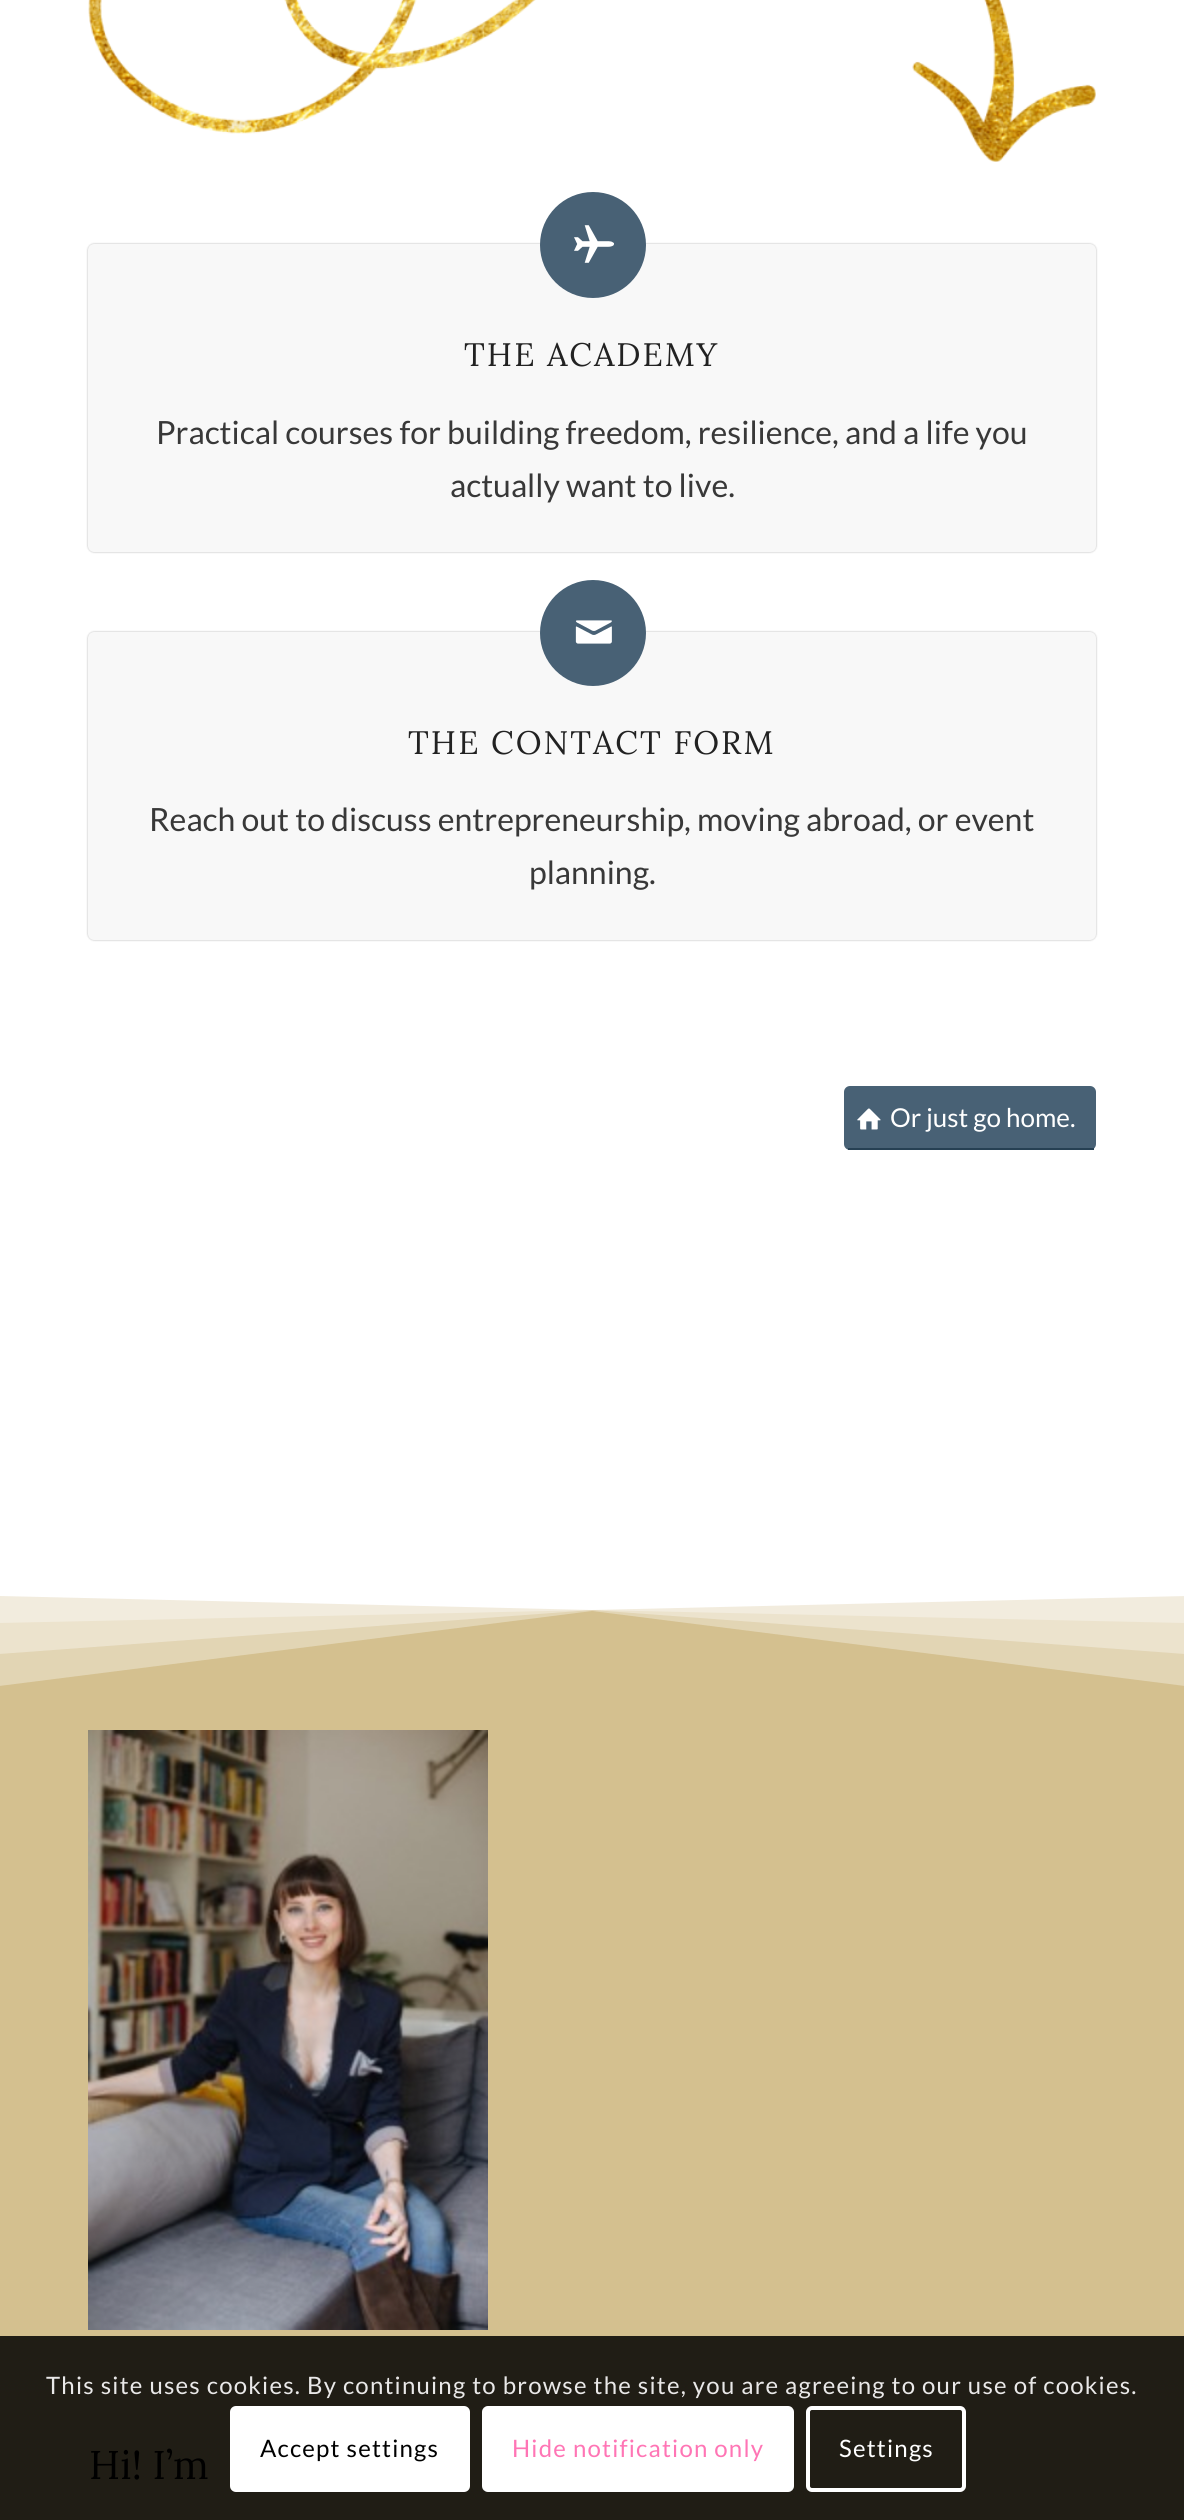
#include <cairo/cairo.h>
#include <math.h>
#include <stddef.h>

static cairo_t *cr;

static void rgb(unsigned color)
{
	cairo_set_source_rgb(cr, (color >> 16) / 255.0, (color >> 8 & 255) / 255.0, (color & 255) / 255.0);
}

static void tracked(double x, double y, const char *s, double letter, double word)
{
	cairo_move_to(cr, x, y);
	while (*s) {
		char ch[5] = {0};
		int n = 0;
		do ch[n++] = *s++; while ((*s & 0xC0) == 0x80);
		cairo_show_text(cr, ch);
		cairo_rel_move_to(cr, letter + word * (*ch == ' '), 0);
	}
}

static void rrect(double x, double y, double w, double h, double r)
{
	cairo_new_sub_path(cr);
	cairo_arc(cr, x + w - r, y + h - r, r, 0, M_PI / 2);
	cairo_arc(cr, x + r, y + h - r, r, M_PI / 2, M_PI);
	cairo_arc(cr, x + r, y + r, r, M_PI, 1.5 * M_PI);
	cairo_arc(cr, x + w - r, y + r, r, 1.5 * M_PI, 2 * M_PI);
	cairo_close_path(cr);
}

static void soft_shadow(double x, double y, double w, double h, double r, double blur, double alpha)
{
	cairo_push_group_with_content(cr, CAIRO_CONTENT_ALPHA);
	cairo_set_operator(cr, CAIRO_OPERATOR_SOURCE);
	for (int i = 15; i >= -15 && fmin(w, h) + blur * i / 3 > 0; i -= 2) {
		double e = blur * i / 6;
		cairo_set_source_rgba(cr, 0, 0, 0, alpha * erfc((i - 1) / 8.5) / 2);
		rrect(x - e, y - e, w + 2 * e, h + 2 * e, fmax(0, fmin(r + e + blur * .6, fmin(w, h) / 2 + e)));
		cairo_fill(cr);
	}
	cairo_pattern_t *soft = cairo_pop_group(cr);
	cairo_mask(cr, soft);
	cairo_pattern_destroy(soft);
}

static void image(const char *path, double x, double y, double w, double h)
{
	cairo_surface_t *image = cairo_image_surface_create_from_png(path);
	cairo_save(cr);
	cairo_set_source_surface(cr, image, x, y);
	cairo_rectangle(cr, x, y, w, h);
	cairo_fill(cr);
	cairo_restore(cr);
	cairo_surface_destroy(image);
}

int main(void) {
	cairo_surface_t *surface = cairo_image_surface_create(CAIRO_FORMAT_RGB24, 1184, 2520);
	cr = cairo_create(surface);
	cairo_font_options_t *options = cairo_font_options_create();
	cairo_font_options_set_hint_metrics(options, CAIRO_HINT_METRICS_OFF);
	cairo_font_options_set_hint_style(options, CAIRO_HINT_STYLE_NONE);
	cairo_set_font_options(cr, options);
	cairo_set_miter_limit(cr, 4);
	rgb(0xffffff);
	cairo_paint(cr);
	image("img/1.png", 88, 0, 1008, 162);
	rgb(0x000000);
	soft_shadow(88, 244, 1008, 308, 6, 1, 0.3);
	rgb(0xf8f8f8);
	rrect(88, 244, 1008, 308, 6);
	cairo_fill(cr);
	rgb(0x486175);
	cairo_arc(cr, 593, 245, 53, 0, 2 * M_PI);
	cairo_fill(cr);
	image("img/2.png", 574, 225, 40, 38);
	rgb(0x000000);
	soft_shadow(88, 632, 1008, 308, 6, 1, 0.3);
	rgb(0xf8f8f8);
	rrect(88, 632, 1008, 308, 6);
	cairo_fill(cr);
	rgb(0x486175);
	cairo_arc(cr, 593, 633, 53, 0, 2 * M_PI);
	cairo_fill(cr);
	image("img/3.png", 575, 620, 37, 24);
	rrect(844, 1086, 252, 64, 6);
	cairo_fill(cr);
	rgb(0x264053);
	cairo_rectangle(cr, 848, 1148, 246, 2);
	cairo_fill(cr);
	image("img/4.png", 857, 1108, 24, 22);
	rgb(0xd4c08f);
	cairo_rectangle(cr, 0, 1611, 1184, 725);
	cairo_fill(cr);
	rgb(0x201d15);
	cairo_rectangle(cr, 0, 2336, 1184, 184);
	cairo_fill(cr);
	rgb(0xe2d5b4);
	cairo_new_path(cr);
	cairo_move_to(cr, -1, 1590);
	cairo_line_to(cr, -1, 1686);
	cairo_line_to(cr, 592, 1611);
	cairo_line_to(cr, 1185, 1686);
	cairo_line_to(cr, 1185, 1590);
	cairo_close_path(cr);
	cairo_fill(cr);
	rgb(0xece3cd);
	cairo_new_path(cr);
	cairo_move_to(cr, -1, 1590);
	cairo_line_to(cr, -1, 1654);
	cairo_line_to(cr, 592, 1610);
	cairo_line_to(cr, 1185, 1654);
	cairo_line_to(cr, 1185, 1590);
	cairo_close_path(cr);
	cairo_fill(cr);
	rgb(0xf2ecde);
	cairo_new_path(cr);
	cairo_move_to(cr, -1, 1590);
	cairo_line_to(cr, -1, 1623);
	cairo_line_to(cr, 592, 1610);
	cairo_line_to(cr, 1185, 1623);
	cairo_line_to(cr, 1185, 1590);
	cairo_close_path(cr);
	cairo_fill(cr);
	rgb(0xffffff);
	cairo_new_path(cr);
	cairo_move_to(cr, -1, 1590);
	cairo_line_to(cr, -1, 1596);
	cairo_line_to(cr, 592, 1610);
	cairo_line_to(cr, 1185, 1596);
	cairo_line_to(cr, 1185, 1590);
	cairo_close_path(cr);
	cairo_fill(cr);
	image("img/5.png", 88, 1730, 400, 600);
	rrect(230, 2406, 240, 86, 6);
	cairo_fill(cr);
	rrect(484, 2408, 308, 82, 4);
	cairo_fill_preserve(cr);
	cairo_set_line_width(cr, 4);
	cairo_stroke(cr);
	rrect(808, 2408, 156, 82, 4);
	cairo_stroke(cr);
	cairo_select_font_face(cr, "Lora", CAIRO_FONT_SLANT_NORMAL, CAIRO_FONT_WEIGHT_NORMAL);
	cairo_set_font_size(cr, 32.5);
	rgb(0x222222);
	tracked(464, 366, "THE ACADEMY", 2, 0);
	cairo_select_font_face(cr, "Lato", CAIRO_FONT_SLANT_NORMAL, CAIRO_FONT_WEIGHT_NORMAL);
	cairo_set_font_size(cr, 32);
	rgb(0x383838);
	cairo_move_to(cr, 156, 444);
	cairo_show_text(cr, "Practical courses for building freedom, resilience, and a life you");
	cairo_move_to(cr, 450, 497);
	cairo_show_text(cr, "actually want to live.");
	cairo_select_font_face(cr, "Lora", CAIRO_FONT_SLANT_NORMAL, CAIRO_FONT_WEIGHT_NORMAL);
	cairo_set_font_size(cr, 32.5);
	rgb(0x222222);
	tracked(408, 754, "THE CONTACT FORM", 2, 0);
	cairo_select_font_face(cr, "Lato", CAIRO_FONT_SLANT_NORMAL, CAIRO_FONT_WEIGHT_NORMAL);
	cairo_set_font_size(cr, 32);
	rgb(0x383838);
	cairo_move_to(cr, 149, 831);
	cairo_show_text(cr, "Reach out to discuss entrepreneurship, moving abroad, or event");
	cairo_move_to(cr, 529, 884);
	cairo_show_text(cr, "planning.");
	cairo_set_font_size(cr, 26);
	rgb(0xffffff);
	cairo_move_to(cr, 890, 1127);
	cairo_show_text(cr, "Or just go home.");
	cairo_select_font_face(cr, "Lora", CAIRO_FONT_SLANT_NORMAL, CAIRO_FONT_WEIGHT_NORMAL);
	cairo_set_font_size(cr, 40);
	rgb(0x000000);
	cairo_move_to(cr, 89, 2479);
	cairo_show_text(cr, "Hi! I’m");
	cairo_select_font_face(cr, "Lato", CAIRO_FONT_SLANT_NORMAL, CAIRO_FONT_WEIGHT_NORMAL);
	cairo_set_font_size(cr, 24);
	rgb(0xe9e8e8);
	tracked(46, 2394, "This site uses cookies. By continuing to browse the site, you are agreeing to our use of cookies.", 1.2, 0);
	rgb(0x000000);
	tracked(260, 2457, "Accept settings", 1.2, 0);
	rgb(0xff75b5);
	tracked(512, 2457, "Hide notification only", 1.2, 0);
	rgb(0xffffff);
	tracked(839, 2457, "Settings", 1.2, 0);
	cairo_surface_write_to_png(surface, "page.png");
	cairo_font_options_destroy(options);
	cairo_destroy(cr);
	cairo_surface_destroy(surface);
	return 0;
}
